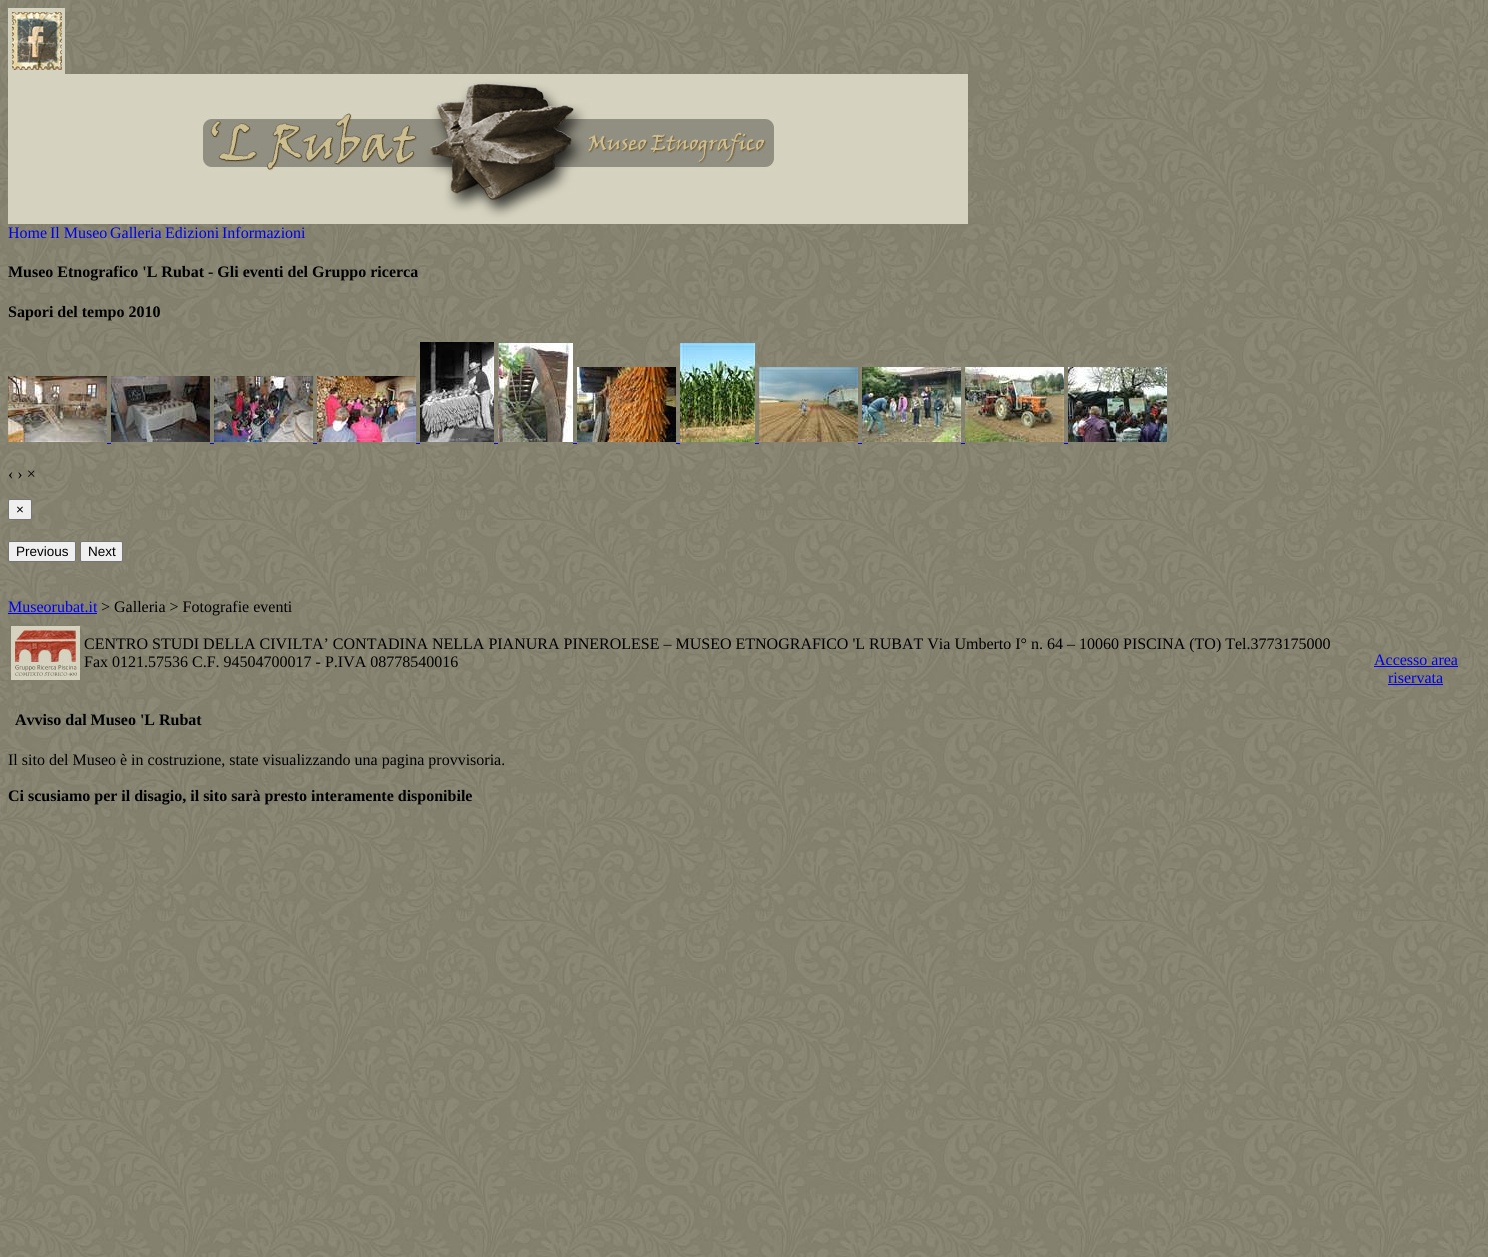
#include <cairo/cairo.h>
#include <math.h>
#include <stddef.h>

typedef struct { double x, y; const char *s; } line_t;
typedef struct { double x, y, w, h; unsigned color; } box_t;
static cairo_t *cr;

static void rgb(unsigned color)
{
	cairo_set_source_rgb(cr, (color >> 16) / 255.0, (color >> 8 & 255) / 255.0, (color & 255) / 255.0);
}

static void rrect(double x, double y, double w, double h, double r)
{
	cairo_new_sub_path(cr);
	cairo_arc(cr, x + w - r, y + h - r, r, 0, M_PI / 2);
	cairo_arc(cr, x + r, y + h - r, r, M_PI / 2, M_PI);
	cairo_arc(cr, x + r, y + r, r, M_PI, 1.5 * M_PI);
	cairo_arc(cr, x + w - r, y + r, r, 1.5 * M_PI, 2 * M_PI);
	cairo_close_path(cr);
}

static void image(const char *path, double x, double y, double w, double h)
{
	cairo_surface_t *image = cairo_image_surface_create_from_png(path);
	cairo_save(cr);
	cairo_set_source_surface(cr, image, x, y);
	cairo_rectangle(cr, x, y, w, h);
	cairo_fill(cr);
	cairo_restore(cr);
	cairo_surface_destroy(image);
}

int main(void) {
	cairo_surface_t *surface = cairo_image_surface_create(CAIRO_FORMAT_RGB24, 1488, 1257);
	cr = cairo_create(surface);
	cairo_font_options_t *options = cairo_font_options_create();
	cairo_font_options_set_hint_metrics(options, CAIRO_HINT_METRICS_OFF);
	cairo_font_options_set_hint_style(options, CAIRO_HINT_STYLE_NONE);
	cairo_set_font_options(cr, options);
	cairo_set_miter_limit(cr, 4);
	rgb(0xffffff);
	cairo_paint(cr);
	image("img/1.png", 0, 0, 1488, 1257);
	image("img/2.png", 8, 8, 57, 66);
	image("img/3.png", 8, 74, 960, 150);
	image("img/4.png", 8, 376, 99, 66);
	image("img/5.png", 111, 376, 99, 66);
	image("img/6.png", 214, 376, 99, 66);
	image("img/7.png", 317, 376, 99, 66);
	image("img/8.png", 420, 342, 74, 100);
	image("img/9.png", 498, 343, 75, 99);
	image("img/10.png", 577, 367, 99, 75);
	image("img/11.png", 680, 343, 75, 99);
	image("img/12.png", 759, 367, 99, 75);
	image("img/13.png", 862, 367, 99, 75);
	image("img/14.png", 965, 367, 99, 75);
	image("img/15.png", 1068, 367, 99, 75);
	{
		static const box_t items[] = {
			{107, 443, 4, 1, 0x0000ee},
			{210, 443, 4, 1, 0x0000ee},
			{313, 443, 4, 1, 0x0000ee},
			{416, 443, 4, 1, 0x0000ee},
			{494, 443, 4, 1, 0x0000ee},
			{573, 443, 4, 1, 0x0000ee},
			{676, 443, 4, 1, 0x0000ee},
			{755, 443, 4, 1, 0x0000ee},
			{858, 443, 4, 1, 0x0000ee},
			{961, 443, 4, 1, 0x0000ee},
			{1064, 443, 4, 1, 0x0000ee},
		};
		for (size_t i = 0; i < sizeof items / sizeof *items; i++) {
			rgb(items[i].color);
			cairo_rectangle(cr, items[i].x, items[i].y, items[i].w, items[i].h);
			cairo_fill(cr);
		}
	}
	rgb(0xefefef);
	rrect(8.5, 499.5, 23, 20, 1.5);
	cairo_fill_preserve(cr);
	rgb(0x767676);
	cairo_set_line_width(cr, 1);
	cairo_stroke(cr);
	rgb(0xefefef);
	rrect(8.5, 541.5, 67, 20, 1.5);
	cairo_fill_preserve(cr);
	rgb(0x767676);
	cairo_stroke(cr);
	rgb(0xefefef);
	rrect(80.5, 541.5, 42, 20, 1.5);
	cairo_fill_preserve(cr);
	rgb(0x767676);
	cairo_stroke(cr);
	rgb(0x0000ee);
	cairo_rectangle(cr, 8, 613, 89, 1);
	cairo_fill(cr);
	image("img/16.png", 11, 626, 69, 54);
	cairo_rectangle(cr, 1374, 666, 84, 1);
	cairo_fill(cr);
	cairo_rectangle(cr, 1388, 684, 55, 1);
	cairo_fill(cr);
	cairo_select_font_face(cr, "Liberation Serif", CAIRO_FONT_SLANT_NORMAL, CAIRO_FONT_WEIGHT_NORMAL);
	cairo_set_font_size(cr, 16);
	{
		static const line_t items[] = {
			{8, 238, "Home"},
			{50, 238, "Il Museo"},
			{110, 238, "Galleria"},
			{165, 238, "Edizioni"},
			{222, 238, "Informazioni"},
		};
		for (size_t i = 0; i < sizeof items / sizeof *items; i++) {
			cairo_move_to(cr, items[i].x, items[i].y);
			cairo_show_text(cr, items[i].s);
		}
	}
	cairo_select_font_face(cr, "Liberation Serif", CAIRO_FONT_SLANT_NORMAL, CAIRO_FONT_WEIGHT_BOLD);
	rgb(0x000000);
	cairo_move_to(cr, 8, 277);
	cairo_show_text(cr, "Museo Etnografico 'L Rubat - Gli eventi del Gruppo ricerca");
	cairo_move_to(cr, 8, 317);
	cairo_show_text(cr, "Sapori del tempo 2010");
	cairo_select_font_face(cr, "Liberation Serif", CAIRO_FONT_SLANT_NORMAL, CAIRO_FONT_WEIGHT_NORMAL);
	cairo_move_to(cr, 8, 479);
	cairo_show_text(cr, "‹ › ×");
	cairo_select_font_face(cr, "Liberation Sans", CAIRO_FONT_SLANT_NORMAL, CAIRO_FONT_WEIGHT_NORMAL);
	cairo_set_font_size(cr, 13.5);
	{
		static const line_t items[] = {
			{16, 514, "×"},
			{16, 556, "Previous"},
			{88, 556, "Next"},
		};
		for (size_t i = 0; i < sizeof items / sizeof *items; i++) {
			cairo_move_to(cr, items[i].x, items[i].y);
			cairo_show_text(cr, items[i].s);
		}
	}
	cairo_select_font_face(cr, "Liberation Serif", CAIRO_FONT_SLANT_NORMAL, CAIRO_FONT_WEIGHT_NORMAL);
	cairo_set_font_size(cr, 16);
	rgb(0x0000ee);
	cairo_move_to(cr, 8, 612);
	cairo_show_text(cr, "Museorubat.it");
	rgb(0x000000);
	{
		static const line_t items[] = {
			{101, 612, "> Galleria > Fotografie eventi"},
			{84, 649, "CENTRO STUDI DELLA CIVILTA’ CONTADINA NELLA PIANURA PINEROLESE – MUSEO ETNOGRAFICO 'L RUBAT Via Umberto I° n. 64 – 10060 PISCINA (TO) Tel.3773175000"},
			{84, 667, "Fax 0121.57536 C.F. 94504700017 - P.IVA 08778540016"},
		};
		for (size_t i = 0; i < sizeof items / sizeof *items; i++) {
			cairo_move_to(cr, items[i].x, items[i].y);
			cairo_show_text(cr, items[i].s);
		}
	}
	rgb(0x0000ee);
	cairo_move_to(cr, 1374, 665);
	cairo_show_text(cr, "Accesso area");
	cairo_move_to(cr, 1388, 683);
	cairo_show_text(cr, "riservata");
	cairo_select_font_face(cr, "Liberation Serif", CAIRO_FONT_SLANT_NORMAL, CAIRO_FONT_WEIGHT_BOLD);
	rgb(0x000000);
	cairo_move_to(cr, 15, 725);
	cairo_show_text(cr, "Avviso dal Museo 'L Rubat");
	cairo_select_font_face(cr, "Liberation Serif", CAIRO_FONT_SLANT_NORMAL, CAIRO_FONT_WEIGHT_NORMAL);
	cairo_move_to(cr, 8, 765);
	cairo_show_text(cr, "Il sito del Museo è in costruzione, state visualizzando una pagina provvisoria.");
	cairo_select_font_face(cr, "Liberation Serif", CAIRO_FONT_SLANT_NORMAL, CAIRO_FONT_WEIGHT_BOLD);
	cairo_move_to(cr, 8, 801);
	cairo_show_text(cr, "Ci scusiamo per il disagio, il sito sarà presto interamente disponibile");
	cairo_surface_write_to_png(surface, "page.png");
	cairo_font_options_destroy(options);
	cairo_destroy(cr);
	cairo_surface_destroy(surface);
	return 0;
}
